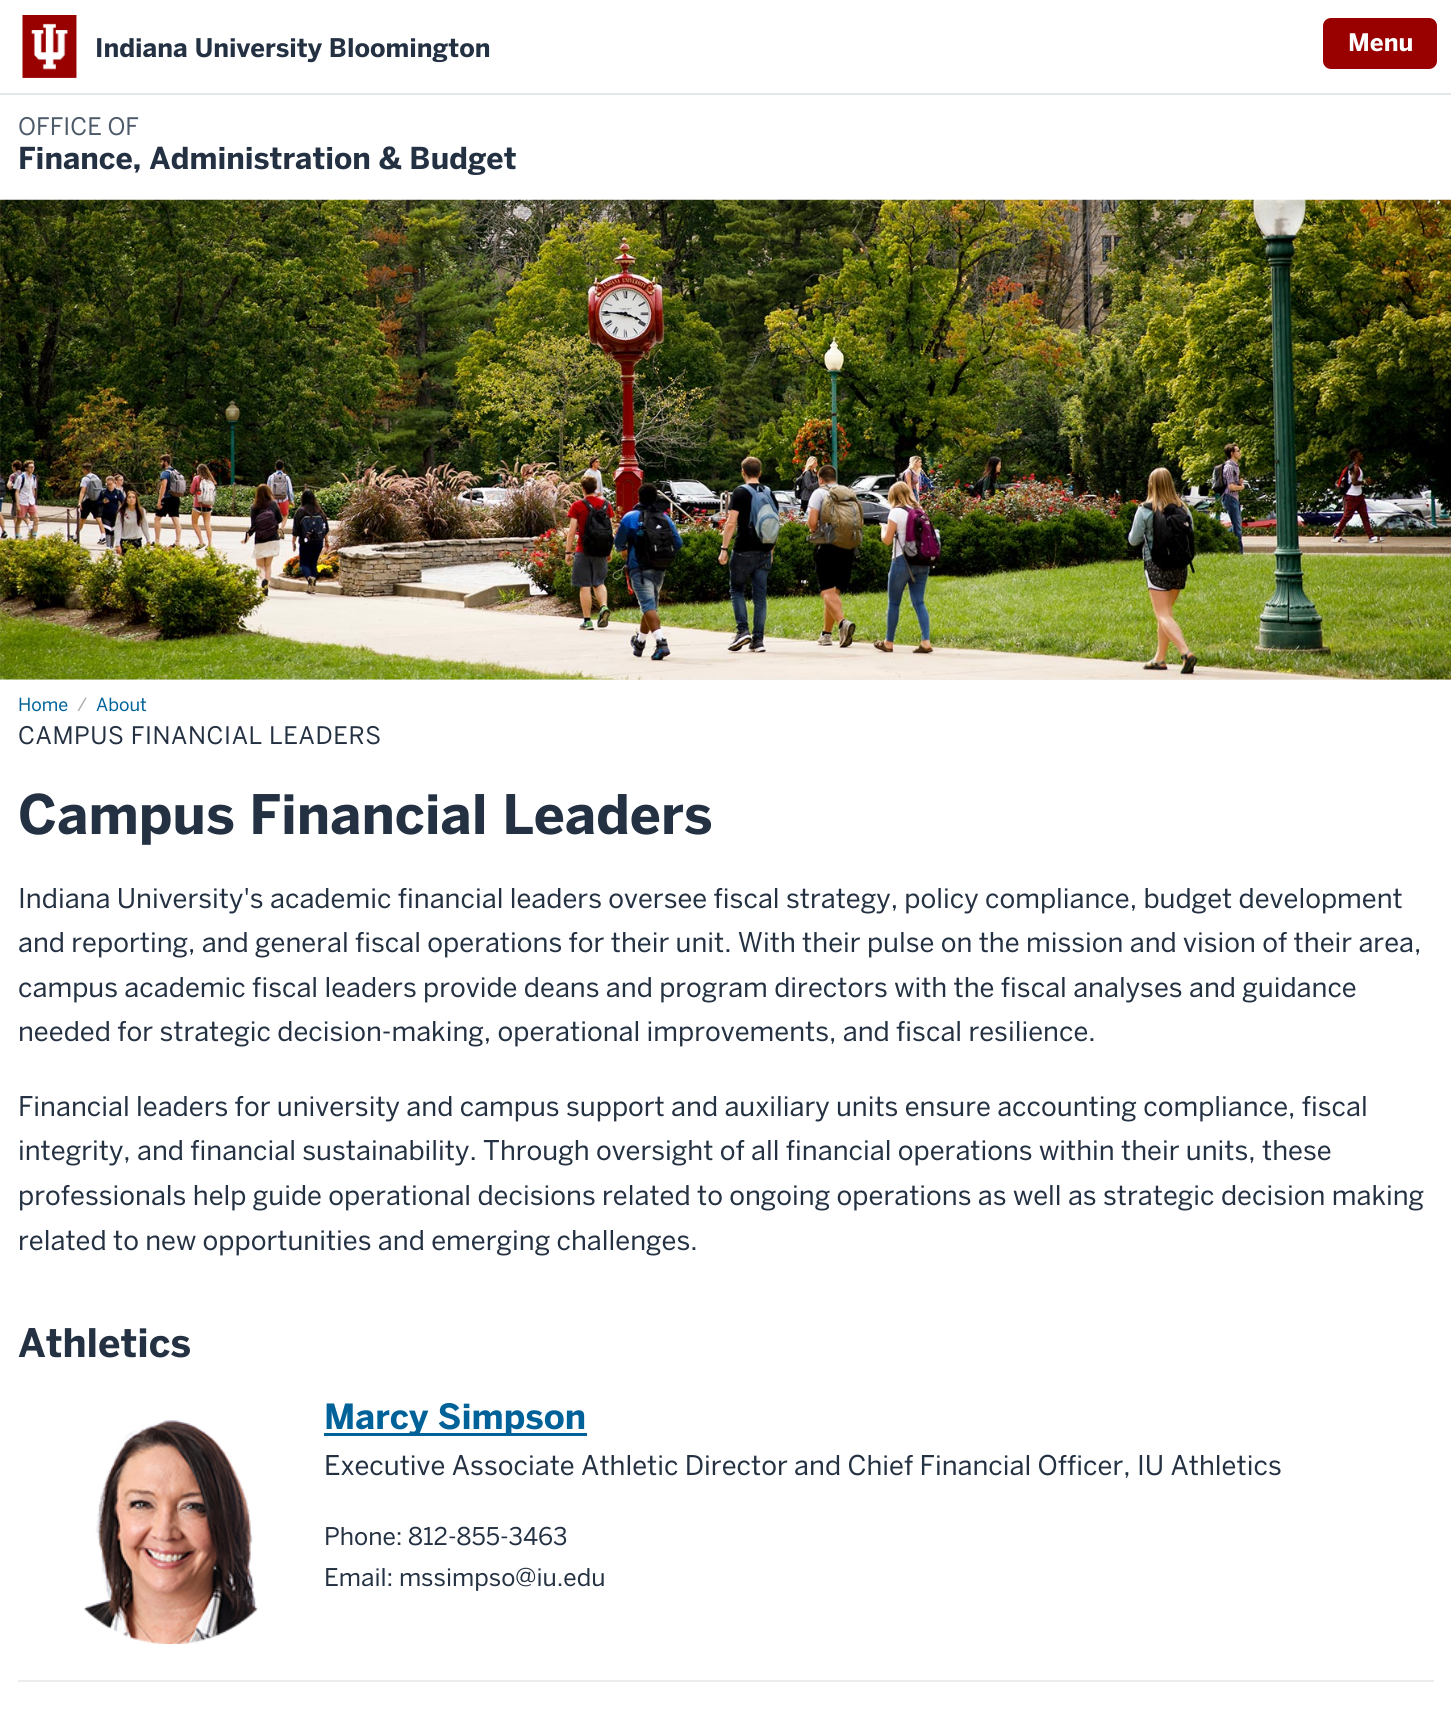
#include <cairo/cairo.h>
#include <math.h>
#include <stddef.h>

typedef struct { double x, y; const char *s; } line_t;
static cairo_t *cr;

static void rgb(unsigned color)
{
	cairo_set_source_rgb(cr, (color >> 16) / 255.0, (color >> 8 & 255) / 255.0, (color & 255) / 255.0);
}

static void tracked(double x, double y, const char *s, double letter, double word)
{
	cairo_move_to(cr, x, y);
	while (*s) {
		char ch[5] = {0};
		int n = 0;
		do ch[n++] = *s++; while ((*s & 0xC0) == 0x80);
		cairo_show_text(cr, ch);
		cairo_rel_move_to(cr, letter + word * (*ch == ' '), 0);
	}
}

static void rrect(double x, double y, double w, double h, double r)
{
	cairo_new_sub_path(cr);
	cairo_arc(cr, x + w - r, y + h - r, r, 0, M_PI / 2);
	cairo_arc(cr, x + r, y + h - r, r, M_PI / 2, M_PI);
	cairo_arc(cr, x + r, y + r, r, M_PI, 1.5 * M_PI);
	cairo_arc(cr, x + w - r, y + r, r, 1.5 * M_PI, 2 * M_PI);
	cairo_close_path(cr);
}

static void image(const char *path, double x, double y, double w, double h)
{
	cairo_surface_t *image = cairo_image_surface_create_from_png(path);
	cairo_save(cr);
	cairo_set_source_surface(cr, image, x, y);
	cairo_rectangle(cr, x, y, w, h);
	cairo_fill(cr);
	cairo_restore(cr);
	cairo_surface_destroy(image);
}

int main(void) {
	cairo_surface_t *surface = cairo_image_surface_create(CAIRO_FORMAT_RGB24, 1451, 1736);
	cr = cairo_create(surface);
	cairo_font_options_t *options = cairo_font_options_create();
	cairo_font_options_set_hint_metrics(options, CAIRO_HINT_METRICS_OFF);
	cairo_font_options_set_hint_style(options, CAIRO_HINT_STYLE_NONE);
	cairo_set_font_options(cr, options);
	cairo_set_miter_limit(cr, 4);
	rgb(0xffffff);
	cairo_paint(cr);
	rgb(0xe2e7e9);
	cairo_rectangle(cr, 0, 93, 1451, 2);
	cairo_fill(cr);
	image("img/1.png", 22, 15, 55, 63);
	rgb(0x990000);
	rrect(1323, 18, 114, 51, 8);
	cairo_fill(cr);
	rgb(0xededea);
	cairo_rectangle(cr, 0, 679, 1451, 1);
	cairo_fill(cr);
	image("img/2.png", 0, 199, 1451, 481);
	image("img/3.png", 83, 1420, 176, 224);
	rgb(0x006298);
	cairo_rectangle(cr, 324, 1433, 263, 3);
	cairo_fill(cr);
	rgb(0xedebeb);
	cairo_rectangle(cr, 18, 1680, 1416, 2);
	cairo_fill(cr);
	cairo_select_font_face(cr, "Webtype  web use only", CAIRO_FONT_SLANT_NORMAL, CAIRO_FONT_WEIGHT_BOLD);
	cairo_set_font_size(cr, 25.5);
	rgb(0x243142);
	cairo_move_to(cr, 95, 57);
	cairo_show_text(cr, "Indiana University Bloomington");
	cairo_set_font_size(cr, 24);
	rgb(0xffffff);
	cairo_move_to(cr, 1348, 51);
	cairo_show_text(cr, "Menu");
	cairo_select_font_face(cr, "Webtype  web use only", CAIRO_FONT_SLANT_NORMAL, CAIRO_FONT_WEIGHT_NORMAL);
	rgb(0x4c5a69);
	cairo_move_to(cr, 18, 135);
	cairo_show_text(cr, "OFFICE OF");
	cairo_select_font_face(cr, "Webtype  web use only", CAIRO_FONT_SLANT_NORMAL, CAIRO_FONT_WEIGHT_BOLD);
	cairo_set_font_size(cr, 30);
	rgb(0x243142);
	cairo_move_to(cr, 18, 169);
	cairo_show_text(cr, "Finance, Administration & Budget");
	cairo_select_font_face(cr, "Webtype  web use only", CAIRO_FONT_SLANT_NORMAL, CAIRO_FONT_WEIGHT_NORMAL);
	cairo_set_font_size(cr, 18);
	rgb(0x006298);
	cairo_move_to(cr, 18, 711);
	cairo_show_text(cr, "Home");
	rgb(0xaaaaaa);
	cairo_move_to(cr, 77, 711);
	cairo_show_text(cr, "/");
	rgb(0x006298);
	cairo_move_to(cr, 96, 711);
	cairo_show_text(cr, "About");
	cairo_set_font_size(cr, 24);
	rgb(0x243142);
	tracked(18, 744, "CAMPUS FINANCIAL LEADERS", 0.6, 0);
	cairo_select_font_face(cr, "Webtype  web use only", CAIRO_FONT_SLANT_NORMAL, CAIRO_FONT_WEIGHT_BOLD);
	cairo_set_font_size(cr, 54);
	cairo_move_to(cr, 18, 834);
	cairo_show_text(cr, "Campus Financial Leaders");
	cairo_select_font_face(cr, "Webtype  web use only", CAIRO_FONT_SLANT_NORMAL, CAIRO_FONT_WEIGHT_NORMAL);
	cairo_set_font_size(cr, 27);
	{
		static const line_t items[] = {
			{18, 908, "Indiana University's academic financial leaders oversee fiscal strategy, policy compliance, budget development"},
			{18, 952, "and reporting, and general fiscal operations for their unit. With their pulse on the mission and vision of their area,"},
			{18, 997, "campus academic fiscal leaders provide deans and program directors with the fiscal analyses and guidance"},
			{18, 1041, "needed for strategic decision-making, operational improvements, and fiscal resilience."},
			{18, 1116, "Financial leaders for university and campus support and auxiliary units ensure accounting compliance, fiscal"},
			{18, 1160, "integrity, and financial sustainability. Through oversight of all financial operations within their units, these"},
			{18, 1205, "professionals help guide operational decisions related to ongoing operations as well as strategic decision making"},
			{18, 1250, "related to new opportunities and emerging challenges."},
		};
		for (size_t i = 0; i < sizeof items / sizeof *items; i++) {
			cairo_move_to(cr, items[i].x, items[i].y);
			cairo_show_text(cr, items[i].s);
		}
	}
	cairo_select_font_face(cr, "Webtype  web use only", CAIRO_FONT_SLANT_NORMAL, CAIRO_FONT_WEIGHT_BOLD);
	cairo_set_font_size(cr, 39);
	cairo_move_to(cr, 18, 1357);
	cairo_show_text(cr, "Athletics");
	cairo_set_font_size(cr, 34.5);
	rgb(0x006298);
	cairo_move_to(cr, 324, 1429);
	cairo_show_text(cr, "Marcy Simpson");
	cairo_select_font_face(cr, "Webtype  web use only", CAIRO_FONT_SLANT_NORMAL, CAIRO_FONT_WEIGHT_NORMAL);
	cairo_set_font_size(cr, 27);
	rgb(0x243142);
	cairo_move_to(cr, 324, 1475);
	cairo_show_text(cr, "Executive Associate Athletic Director and Chief Financial Officer, IU Athletics");
	cairo_set_font_size(cr, 24.25);
	cairo_move_to(cr, 324, 1545);
	cairo_show_text(cr, "Phone: 812-855-3463");
	cairo_move_to(cr, 324, 1586);
	cairo_show_text(cr, "Email: mssimpso@iu.edu");
	cairo_surface_write_to_png(surface, "page.png");
	cairo_font_options_destroy(options);
	cairo_destroy(cr);
	cairo_surface_destroy(surface);
	return 0;
}
